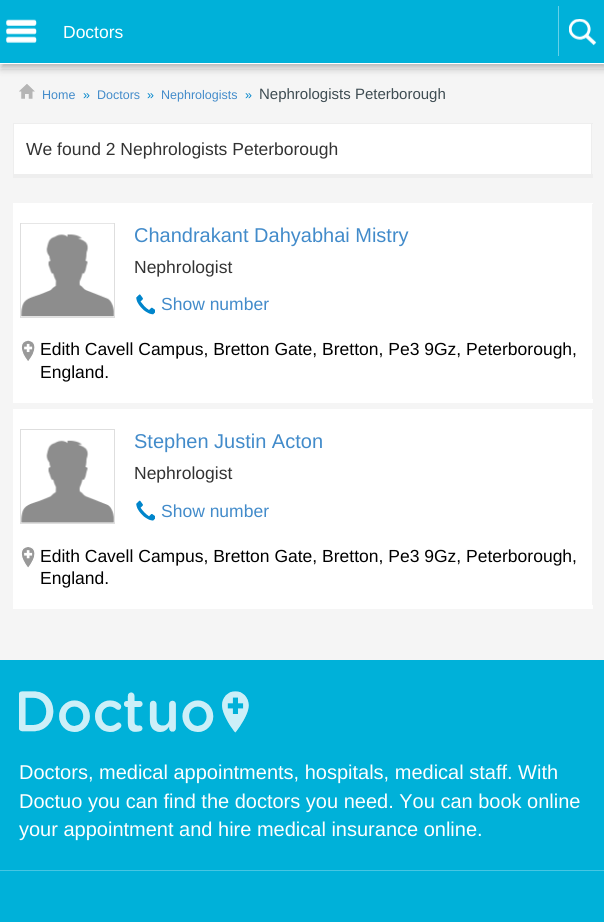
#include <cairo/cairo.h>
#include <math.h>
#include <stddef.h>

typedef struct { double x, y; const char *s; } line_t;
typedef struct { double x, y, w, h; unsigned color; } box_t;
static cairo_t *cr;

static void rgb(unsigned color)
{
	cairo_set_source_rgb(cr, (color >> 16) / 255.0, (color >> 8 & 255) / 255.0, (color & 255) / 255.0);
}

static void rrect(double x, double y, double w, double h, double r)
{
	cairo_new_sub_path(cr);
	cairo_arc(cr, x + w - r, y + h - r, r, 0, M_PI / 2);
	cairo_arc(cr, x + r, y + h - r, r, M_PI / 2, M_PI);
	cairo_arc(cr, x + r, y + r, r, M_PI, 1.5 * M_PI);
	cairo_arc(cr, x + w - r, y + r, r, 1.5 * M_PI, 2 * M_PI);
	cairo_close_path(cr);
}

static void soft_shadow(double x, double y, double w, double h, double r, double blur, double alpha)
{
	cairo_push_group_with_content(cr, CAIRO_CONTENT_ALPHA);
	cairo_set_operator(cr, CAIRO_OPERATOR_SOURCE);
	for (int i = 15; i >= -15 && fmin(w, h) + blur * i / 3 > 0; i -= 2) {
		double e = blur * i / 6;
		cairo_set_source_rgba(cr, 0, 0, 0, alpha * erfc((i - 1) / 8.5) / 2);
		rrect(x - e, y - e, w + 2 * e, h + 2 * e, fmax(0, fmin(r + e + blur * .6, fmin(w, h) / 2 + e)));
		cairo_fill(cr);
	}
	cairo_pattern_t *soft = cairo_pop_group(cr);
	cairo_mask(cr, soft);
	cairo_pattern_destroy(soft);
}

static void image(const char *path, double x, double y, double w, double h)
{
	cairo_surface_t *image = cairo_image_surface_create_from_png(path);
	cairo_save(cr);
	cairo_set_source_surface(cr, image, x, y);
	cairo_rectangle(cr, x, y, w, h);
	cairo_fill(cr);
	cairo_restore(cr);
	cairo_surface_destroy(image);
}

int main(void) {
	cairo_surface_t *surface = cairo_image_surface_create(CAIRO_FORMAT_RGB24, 604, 922);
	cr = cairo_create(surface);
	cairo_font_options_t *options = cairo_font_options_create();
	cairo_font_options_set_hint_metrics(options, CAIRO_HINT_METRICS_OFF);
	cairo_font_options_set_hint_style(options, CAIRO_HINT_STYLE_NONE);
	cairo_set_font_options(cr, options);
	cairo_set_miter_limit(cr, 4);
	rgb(0xffffff);
	cairo_paint(cr);
	rgb(0xf5f5f5);
	cairo_rectangle(cr, 0, 69, 604, 591);
	cairo_fill(cr);
	rgb(0x282828);
	soft_shadow(1, 4, 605, 64, 0, 4, 0.36);
	rgb(0x00b1d9);
	cairo_rectangle(cr, 0, 0, 604, 63);
	cairo_fill(cr);
	rgb(0xffffff);
	cairo_rectangle(cr, 0, 63, 604, 1);
	cairo_fill(cr);
	image("img/1.png", 6, 19, 31, 24);
	rgb(0x66d0e8);
	cairo_rectangle(cr, 558, 6, 1, 50);
	cairo_fill(cr);
	image("img/2.png", 569, 19, 28, 27);
	image("img/3.png", 19, 84, 16, 15);
	{
		static const box_t items[] = {
			{14, 124, 577, 50, 0xffffff},
			{13, 123, 580, 1, 0xeeeeee},
			{591, 123, 1, 55, 0xeeeeee},
			{13, 174, 580, 4, 0xeeeeee},
			{13, 123, 1, 55, 0xeeeeee},
			{14, 204, 577, 195, 0xffffff},
			{13, 203, 580, 1, 0xffffff},
			{591, 203, 1, 200, 0xffffff},
			{13, 399, 580, 4, 0xffffff},
			{13, 203, 1, 200, 0xffffff},
		};
		for (size_t i = 0; i < sizeof items / sizeof *items; i++) {
			rgb(items[i].color);
			cairo_rectangle(cr, items[i].x, items[i].y, items[i].w, items[i].h);
			cairo_fill(cr);
		}
	}
	cairo_rectangle(cr, 20.5, 223.5, 94, 94);
	rgb(0xdedede);
	cairo_set_line_width(cr, 1);
	cairo_stroke(cr);
	image("img/4.png", 21, 223, 93, 94);
	image("img/5.png", 136, 294, 19, 21);
	image("img/6.png", 21, 340, 14, 21);
	{
		static const box_t items[] = {
			{14, 410, 577, 195, 0xffffff},
			{13, 409, 580, 1, 0xffffff},
			{591, 409, 1, 200, 0xffffff},
			{13, 605, 580, 4, 0xffffff},
			{13, 409, 1, 200, 0xffffff},
		};
		for (size_t i = 0; i < sizeof items / sizeof *items; i++) {
			rgb(items[i].color);
			cairo_rectangle(cr, items[i].x, items[i].y, items[i].w, items[i].h);
			cairo_fill(cr);
		}
	}
	cairo_rectangle(cr, 20.5, 429.5, 94, 94);
	rgb(0xdedede);
	cairo_stroke(cr);
	image("img/7.png", 21, 440, 93, 83);
	image("img/8.png", 136, 500, 19, 21);
	image("img/9.png", 21, 547, 14, 21);
	rgb(0x00b1d9);
	cairo_rectangle(cr, 0, 660, 604, 262);
	cairo_fill(cr);
	image("img/10.png", 19, 691, 230, 42);
	image("img/11.png", 19, 691, 230, 42);
	rgb(0x45c6e3);
	cairo_rectangle(cr, 0, 870, 604, 1);
	cairo_fill(cr);
	cairo_select_font_face(cr, "Liberation Sans", CAIRO_FONT_SLANT_NORMAL, CAIRO_FONT_WEIGHT_NORMAL);
	cairo_set_font_size(cr, 17.5);
	rgb(0xffffff);
	cairo_move_to(cr, 63, 38);
	cairo_show_text(cr, "Doctors");
	cairo_set_font_size(cr, 12.5);
	rgb(0x428bca);
	cairo_move_to(cr, 42, 99);
	cairo_show_text(cr, "Home");
	rgb(0x0085cb);
	cairo_move_to(cr, 83, 99);
	cairo_show_text(cr, "»");
	rgb(0x428bca);
	cairo_move_to(cr, 97, 99);
	cairo_show_text(cr, "Doctors");
	rgb(0x0085cb);
	cairo_move_to(cr, 147, 99);
	cairo_show_text(cr, "»");
	rgb(0x428bca);
	cairo_move_to(cr, 161, 99);
	cairo_show_text(cr, "Nephrologists");
	rgb(0x0085cb);
	cairo_move_to(cr, 245, 99);
	cairo_show_text(cr, "»");
	cairo_set_font_size(cr, 15);
	rgb(0x3e4c52);
	cairo_move_to(cr, 259, 99);
	cairo_show_text(cr, "Nephrologists Peterborough");
	cairo_set_font_size(cr, 17.5);
	rgb(0x333333);
	cairo_move_to(cr, 26, 155);
	cairo_show_text(cr, "We found 2 Nephrologists Peterborough");
	cairo_set_font_size(cr, 20);
	rgb(0x428bca);
	cairo_move_to(cr, 134, 242);
	cairo_show_text(cr, "Chandrakant Dahyabhai Mistry");
	cairo_set_font_size(cr, 17.5);
	rgb(0x333333);
	cairo_move_to(cr, 134, 273);
	cairo_show_text(cr, "Nephrologist");
	rgb(0x428bca);
	cairo_move_to(cr, 161, 310);
	cairo_show_text(cr, "Show number");
	rgb(0x000000);
	cairo_move_to(cr, 40, 355);
	cairo_show_text(cr, "Edith Cavell Campus, Bretton Gate, Bretton, Pe3 9Gz, Peterborough,");
	cairo_move_to(cr, 40, 378);
	cairo_show_text(cr, "England.");
	cairo_set_font_size(cr, 20);
	rgb(0x428bca);
	cairo_move_to(cr, 134, 448);
	cairo_show_text(cr, "Stephen Justin Acton");
	cairo_set_font_size(cr, 17.5);
	rgb(0x333333);
	cairo_move_to(cr, 134, 479);
	cairo_show_text(cr, "Nephrologist");
	rgb(0x428bca);
	cairo_move_to(cr, 161, 517);
	cairo_show_text(cr, "Show number");
	rgb(0x000000);
	cairo_move_to(cr, 40, 562);
	cairo_show_text(cr, "Edith Cavell Campus, Bretton Gate, Bretton, Pe3 9Gz, Peterborough,");
	cairo_move_to(cr, 40, 584);
	cairo_show_text(cr, "England.");
	cairo_set_font_size(cr, 20);
	rgb(0xffffff);
	{
		static const line_t items[] = {
			{19, 779, "Doctors, medical appointments, hospitals, medical staff. With"},
			{19, 808, "Doctuo you can find the doctors you need. You can book online"},
			{19, 836, "your appointment and hire medical insurance online."},
		};
		for (size_t i = 0; i < sizeof items / sizeof *items; i++) {
			cairo_move_to(cr, items[i].x, items[i].y);
			cairo_show_text(cr, items[i].s);
		}
	}
	cairo_surface_write_to_png(surface, "page.png");
	cairo_font_options_destroy(options);
	cairo_destroy(cr);
	cairo_surface_destroy(surface);
	return 0;
}
